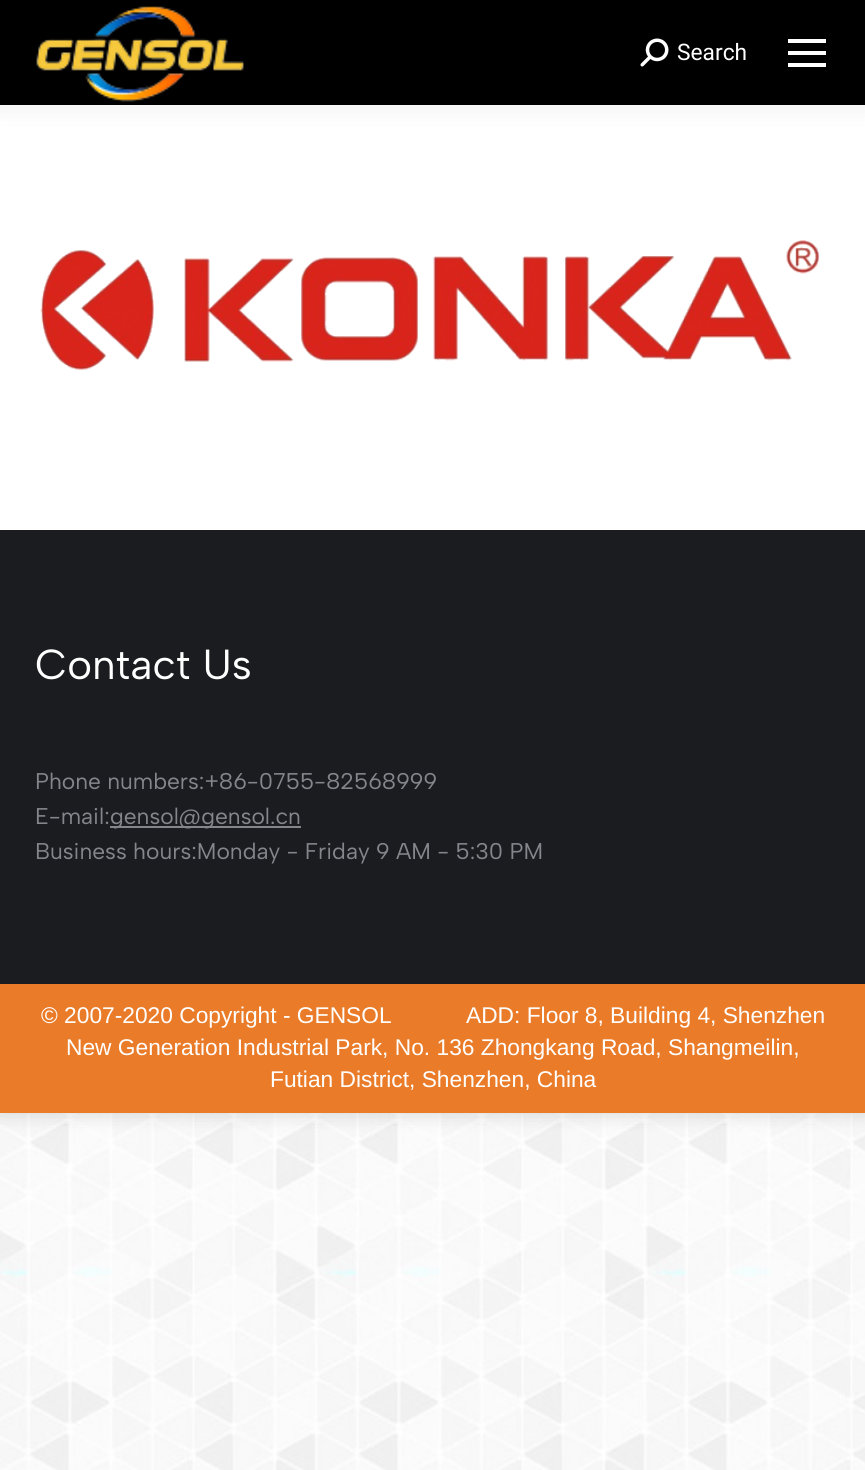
#include <cairo/cairo.h>
#include <math.h>
#include <stddef.h>

typedef struct { double x, y; const char *s; } line_t;
typedef struct { double x, y, w, h; unsigned color; } box_t;
static cairo_t *cr;

static void rgb(unsigned color)
{
	cairo_set_source_rgb(cr, (color >> 16) / 255.0, (color >> 8 & 255) / 255.0, (color & 255) / 255.0);
}

static void rrect(double x, double y, double w, double h, double r)
{
	cairo_new_sub_path(cr);
	cairo_arc(cr, x + w - r, y + h - r, r, 0, M_PI / 2);
	cairo_arc(cr, x + r, y + h - r, r, M_PI / 2, M_PI);
	cairo_arc(cr, x + r, y + r, r, M_PI, 1.5 * M_PI);
	cairo_arc(cr, x + w - r, y + r, r, 1.5 * M_PI, 2 * M_PI);
	cairo_close_path(cr);
}

static void soft_shadow(double x, double y, double w, double h, double r, double blur, double alpha)
{
	cairo_push_group_with_content(cr, CAIRO_CONTENT_ALPHA);
	cairo_set_operator(cr, CAIRO_OPERATOR_SOURCE);
	for (int i = 15; i >= -15 && fmin(w, h) + blur * i / 3 > 0; i -= 2) {
		double e = blur * i / 6;
		cairo_set_source_rgba(cr, 0, 0, 0, alpha * erfc((i - 1) / 8.5) / 2);
		rrect(x - e, y - e, w + 2 * e, h + 2 * e, fmax(0, fmin(r + e + blur * .6, fmin(w, h) / 2 + e)));
		cairo_fill(cr);
	}
	cairo_pattern_t *soft = cairo_pop_group(cr);
	cairo_mask(cr, soft);
	cairo_pattern_destroy(soft);
}

static void image(const char *path, double x, double y, double w, double h)
{
	cairo_surface_t *image = cairo_image_surface_create_from_png(path);
	cairo_save(cr);
	cairo_set_source_surface(cr, image, x, y);
	cairo_rectangle(cr, x, y, w, h);
	cairo_fill(cr);
	cairo_restore(cr);
	cairo_surface_destroy(image);
}

int main(void) {
	cairo_surface_t *surface = cairo_image_surface_create(CAIRO_FORMAT_RGB24, 865, 1470);
	cr = cairo_create(surface);
	cairo_font_options_t *options = cairo_font_options_create();
	cairo_font_options_set_hint_metrics(options, CAIRO_HINT_METRICS_OFF);
	cairo_font_options_set_hint_style(options, CAIRO_HINT_STYLE_NONE);
	cairo_set_font_options(cr, options);
	cairo_set_miter_limit(cr, 4);
	rgb(0xffffff);
	cairo_paint(cr);
	image("img/1.png", 0, 1113, 865, 357);
	rgb(0x000000);
	soft_shadow(0, 0, 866, 1113, 0, 10.5, 0.15);
	rgb(0xffffff);
	cairo_rectangle(cr, 0, 105, 865, 425);
	cairo_fill(cr);
	rgb(0x000000);
	soft_shadow(-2, -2, 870, 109, 0, 13, 0.07);
	rgb(0x000000);
	cairo_rectangle(cr, 0, 0, 865, 105);
	cairo_fill(cr);
	image("img/2.png", 36, 6, 208, 96);
	image("img/3.png", 640, 38, 29, 29);
	{
		static const box_t items[] = {
			{788, 39, 38, 4, 0xffffff},
			{788, 51, 38, 4, 0xffffff},
			{788, 63, 38, 4, 0xffffff},
		};
		for (size_t i = 0; i < sizeof items / sizeof *items; i++) {
			rgb(items[i].color);
			cairo_rectangle(cr, items[i].x, items[i].y, items[i].w, items[i].h);
			cairo_fill(cr);
		}
	}
	image("img/4.png", 40, 240, 779, 130);
	{
		static const box_t items[] = {
			{0, 530, 865, 454, 0x1a1c20},
			{110, 826, 191, 2, 0x85868c},
			{0, 984, 865, 129, 0xea7b28},
		};
		for (size_t i = 0; i < sizeof items / sizeof *items; i++) {
			rgb(items[i].color);
			cairo_rectangle(cr, items[i].x, items[i].y, items[i].w, items[i].h);
			cairo_fill(cr);
		}
	}
	cairo_select_font_face(cr, "Roboto", CAIRO_FONT_SLANT_NORMAL, CAIRO_FONT_WEIGHT_NORMAL);
	cairo_set_font_size(cr, 22.75);
	rgb(0xffffff);
	cairo_move_to(cr, 677, 60);
	cairo_show_text(cr, "Search");
	cairo_select_font_face(cr, "Albert Sans", CAIRO_FONT_SLANT_NORMAL, CAIRO_FONT_WEIGHT_NORMAL);
	cairo_set_font_size(cr, 42);
	cairo_move_to(cr, 35, 679);
	cairo_show_text(cr, "Contact Us");
	cairo_set_font_size(cr, 22.75);
	rgb(0x85868c);
	{
		static const line_t items[] = {
			{35, 789, "Phone numbers:+86-0755-82568999"},
			{35, 824, "E-mail:"},
			{110, 824, "gensol@gensol.cn"},
			{35, 859, "Business hours:Monday - Friday 9 AM - 5:30 PM"},
		};
		for (size_t i = 0; i < sizeof items / sizeof *items; i++) {
			cairo_move_to(cr, items[i].x, items[i].y);
			cairo_show_text(cr, items[i].s);
		}
	}
	cairo_select_font_face(cr, "Liberation Sans", CAIRO_FONT_SLANT_NORMAL, CAIRO_FONT_WEIGHT_NORMAL);
	rgb(0xffffff);
	{
		static const line_t items[] = {
			{41, 1023, "© 2007-2020 Copyright - GENSOL"},
			{466, 1023, "ADD: Floor 8, Building 4, Shenzhen"},
			{66, 1055, "New Generation Industrial Park, No. 136 Zhongkang Road, Shangmeilin,"},
			{270, 1087, "Futian District, Shenzhen, China"},
		};
		for (size_t i = 0; i < sizeof items / sizeof *items; i++) {
			cairo_move_to(cr, items[i].x, items[i].y);
			cairo_show_text(cr, items[i].s);
		}
	}
	cairo_surface_write_to_png(surface, "page.png");
	cairo_font_options_destroy(options);
	cairo_destroy(cr);
	cairo_surface_destroy(surface);
	return 0;
}
